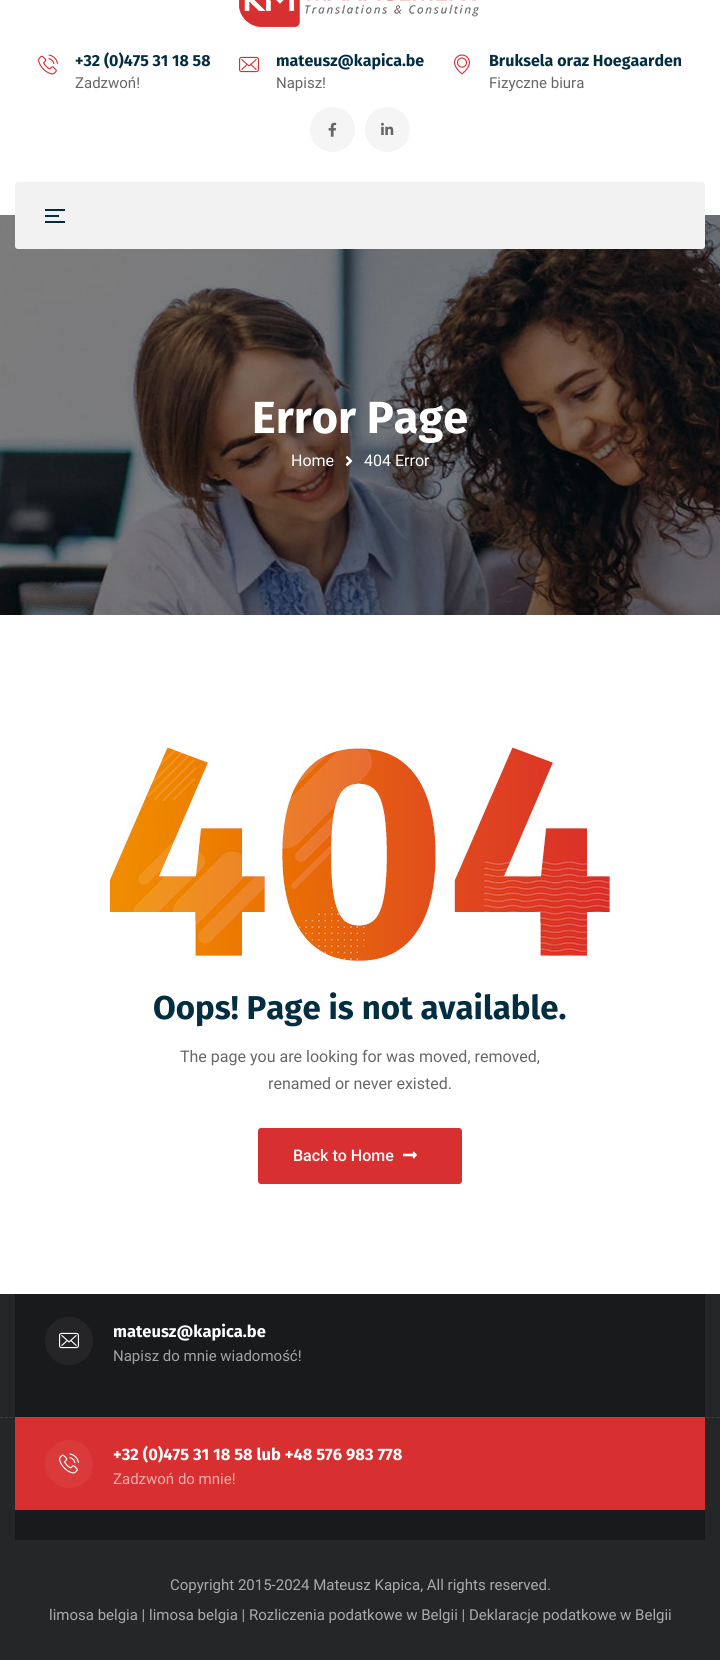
#include <cairo/cairo.h>
#include <math.h>
#include <stddef.h>

typedef struct { double x, y, w, h; unsigned color; } box_t;
static cairo_t *cr;

static void rgb(unsigned color)
{
	cairo_set_source_rgb(cr, (color >> 16) / 255.0, (color >> 8 & 255) / 255.0, (color & 255) / 255.0);
}

static void rrect(double x, double y, double w, double h, double r)
{
	cairo_new_sub_path(cr);
	cairo_arc(cr, x + w - r, y + h - r, r, 0, M_PI / 2);
	cairo_arc(cr, x + r, y + h - r, r, M_PI / 2, M_PI);
	cairo_arc(cr, x + r, y + r, r, M_PI, 1.5 * M_PI);
	cairo_arc(cr, x + w - r, y + r, r, 1.5 * M_PI, 2 * M_PI);
	cairo_close_path(cr);
}

static void image(const char *path, double x, double y, double w, double h)
{
	cairo_surface_t *image = cairo_image_surface_create_from_png(path);
	cairo_save(cr);
	cairo_set_source_surface(cr, image, x, y);
	cairo_rectangle(cr, x, y, w, h);
	cairo_fill(cr);
	cairo_restore(cr);
	cairo_surface_destroy(image);
}

int main(void) {
	cairo_surface_t *surface = cairo_image_surface_create(CAIRO_FORMAT_RGB24, 720, 1660);
	cr = cairo_create(surface);
	cairo_font_options_t *options = cairo_font_options_create();
	cairo_font_options_set_hint_metrics(options, CAIRO_HINT_METRICS_OFF);
	cairo_font_options_set_hint_style(options, CAIRO_HINT_STYLE_NONE);
	cairo_set_font_options(cr, options);
	cairo_set_miter_limit(cr, 4);
	rgb(0xffffff);
	cairo_paint(cr);
	image("img/1.png", 239, 0, 240, 27);
	image("img/2.png", 38, 54, 20, 21);
	image("img/3.png", 239, 56, 20, 17);
	image("img/4.png", 454, 54, 16, 21);
	rgb(0xf5f5f5);
	cairo_arc(cr, 332.5, 129.5, 22.5, 0, 2 * M_PI);
	cairo_fill(cr);
	image("img/5.png", 328, 122, 9, 15);
	cairo_arc(cr, 387.5, 129.5, 22.5, 0, 2 * M_PI);
	cairo_fill(cr);
	image("img/6.png", 381, 122, 13, 13);
	image("img/7.png", 0, 215, 720, 400);
	rgb(0xf2f2f2);
	rrect(15, 182, 690, 67, 3);
	cairo_fill(cr);
	{
		static const box_t items[] = {
			{45, 209, 20, 2, 0x032e42},
			{45, 215, 14, 2, 0x032e42},
			{45, 221, 20, 2, 0x032e42},
		};
		for (size_t i = 0; i < sizeof items / sizeof *items; i++) {
			rgb(items[i].color);
			cairo_rectangle(cr, items[i].x, items[i].y, items[i].w, items[i].h);
			cairo_fill(cr);
		}
	}
	image("img/8.png", 345, 456, 8, 10);
	image("img/9.png", 110, 745, 500, 216);
	rgb(0xd83030);
	rrect(258, 1128, 204, 56, 3);
	cairo_fill(cr);
	image("img/10.png", 403, 1151, 14, 8);
	rgb(0x252628);
	cairo_rectangle(cr, 0, 1294, 720, 366);
	cairo_fill(cr);
	cairo_new_path(cr);
	cairo_move_to(cr, 0, 1417.5);
	cairo_line_to(cr, 720, 1417.5);
	rgb(0x3b3c3f);
	cairo_set_line_width(cr, 1);
	cairo_set_dash(cr, (double[]){3, 2.01}, 2, 0);
	cairo_stroke(cr);
	rgb(0x191a1c);
	cairo_rectangle(cr, 15, 1294, 690, 246);
	cairo_fill(cr);
	rgb(0x252527);
	cairo_arc(cr, 69, 1341, 24, 0, 2 * M_PI);
	cairo_fill(cr);
	image("img/11.png", 59, 1332, 20, 17);
	rgb(0xd83030);
	cairo_rectangle(cr, 15, 1417, 690, 93);
	cairo_fill(cr);
	rgb(0xda3a3a);
	cairo_arc(cr, 69, 1464, 24, 0, 2 * M_PI);
	cairo_fill(cr);
	image("img/12.png", 59, 1453, 20, 21);
	cairo_select_font_face(cr, "Fira Sans", CAIRO_FONT_SLANT_NORMAL, CAIRO_FONT_WEIGHT_BOLD);
	cairo_set_font_size(cr, 16);
	rgb(0x032e42);
	cairo_move_to(cr, 75, 66);
	cairo_show_text(cr, "+32 (0)475 31 18 58");
	cairo_select_font_face(cr, "Roboto", CAIRO_FONT_SLANT_NORMAL, CAIRO_FONT_WEIGHT_NORMAL);
	cairo_set_font_size(cr, 15);
	rgb(0x676767);
	cairo_move_to(cr, 75, 88);
	cairo_show_text(cr, "Zadzwoń!");
	cairo_select_font_face(cr, "Fira Sans", CAIRO_FONT_SLANT_NORMAL, CAIRO_FONT_WEIGHT_BOLD);
	cairo_set_font_size(cr, 16);
	rgb(0x032e42);
	cairo_move_to(cr, 276, 66);
	cairo_show_text(cr, "mateusz@kapica.be");
	cairo_select_font_face(cr, "Roboto", CAIRO_FONT_SLANT_NORMAL, CAIRO_FONT_WEIGHT_NORMAL);
	cairo_set_font_size(cr, 15);
	rgb(0x676767);
	cairo_move_to(cr, 276, 88);
	cairo_show_text(cr, "Napisz!");
	cairo_select_font_face(cr, "Fira Sans", CAIRO_FONT_SLANT_NORMAL, CAIRO_FONT_WEIGHT_BOLD);
	cairo_set_font_size(cr, 16);
	rgb(0x032e42);
	cairo_move_to(cr, 489, 66);
	cairo_show_text(cr, "Bruksela oraz Hoegaarden");
	cairo_select_font_face(cr, "Roboto", CAIRO_FONT_SLANT_NORMAL, CAIRO_FONT_WEIGHT_NORMAL);
	cairo_set_font_size(cr, 15);
	rgb(0x676767);
	cairo_move_to(cr, 489, 88);
	cairo_show_text(cr, "Fizyczne biura");
	cairo_select_font_face(cr, "Fira Sans", CAIRO_FONT_SLANT_NORMAL, CAIRO_FONT_WEIGHT_BOLD);
	cairo_set_font_size(cr, 45);
	rgb(0xffffff);
	cairo_move_to(cr, 252, 433);
	cairo_show_text(cr, "Error Page");
	cairo_select_font_face(cr, "Roboto", CAIRO_FONT_SLANT_NORMAL, CAIRO_FONT_WEIGHT_NORMAL);
	cairo_set_font_size(cr, 16);
	cairo_move_to(cr, 291, 466);
	cairo_show_text(cr, "Home");
	cairo_move_to(cr, 364, 466);
	cairo_show_text(cr, "404 Error");
	cairo_select_font_face(cr, "Fira Sans", CAIRO_FONT_SLANT_NORMAL, CAIRO_FONT_WEIGHT_BOLD);
	cairo_set_font_size(cr, 33);
	rgb(0x032e42);
	cairo_move_to(cr, 153, 1019);
	cairo_show_text(cr, "Oops! Page is not available.");
	cairo_select_font_face(cr, "Roboto", CAIRO_FONT_SLANT_NORMAL, CAIRO_FONT_WEIGHT_NORMAL);
	cairo_set_font_size(cr, 16);
	rgb(0x676767);
	cairo_move_to(cr, 180, 1062);
	cairo_show_text(cr, "The page you are looking for was moved, removed,");
	cairo_move_to(cr, 268, 1089);
	cairo_show_text(cr, "renamed or never existed.");
	cairo_select_font_face(cr, "Roboto Medium", CAIRO_FONT_SLANT_NORMAL, CAIRO_FONT_WEIGHT_NORMAL);
	rgb(0xffffff);
	cairo_move_to(cr, 293, 1161);
	cairo_show_text(cr, "Back to Home");
	cairo_select_font_face(cr, "Fira Sans", CAIRO_FONT_SLANT_NORMAL, CAIRO_FONT_WEIGHT_BOLD);
	cairo_set_font_size(cr, 16.5);
	cairo_move_to(cr, 113, 1337);
	cairo_show_text(cr, "mateusz@kapica.be");
	cairo_select_font_face(cr, "Roboto", CAIRO_FONT_SLANT_NORMAL, CAIRO_FONT_WEIGHT_NORMAL);
	cairo_set_font_size(cr, 15);
	rgb(0xa3a3a4);
	cairo_move_to(cr, 113, 1361);
	cairo_show_text(cr, "Napisz do mnie wiadomość!");
	cairo_select_font_face(cr, "Fira Sans", CAIRO_FONT_SLANT_NORMAL, CAIRO_FONT_WEIGHT_BOLD);
	cairo_set_font_size(cr, 16.5);
	rgb(0xffffff);
	cairo_move_to(cr, 113, 1460);
	cairo_show_text(cr, "+32 (0)475 31 18 58 lub +48 576 983 778");
	cairo_select_font_face(cr, "Roboto", CAIRO_FONT_SLANT_NORMAL, CAIRO_FONT_WEIGHT_NORMAL);
	cairo_set_font_size(cr, 15);
	rgb(0xefacac);
	cairo_move_to(cr, 113, 1484);
	cairo_show_text(cr, "Zadzwoń do mnie!");
	rgb(0xaaaaaa);
	cairo_move_to(cr, 170, 1590);
	cairo_show_text(cr, "Copyright 2015-2024 Mateusz Kapica, All rights reserved.");
	cairo_move_to(cr, 49, 1620);
	cairo_show_text(cr, "limosa belgia | limosa belgia | Rozliczenia podatkowe w Belgii | Deklaracje podatkowe w Belgii");
	cairo_surface_write_to_png(surface, "page.png");
	cairo_font_options_destroy(options);
	cairo_destroy(cr);
	cairo_surface_destroy(surface);
	return 0;
}
